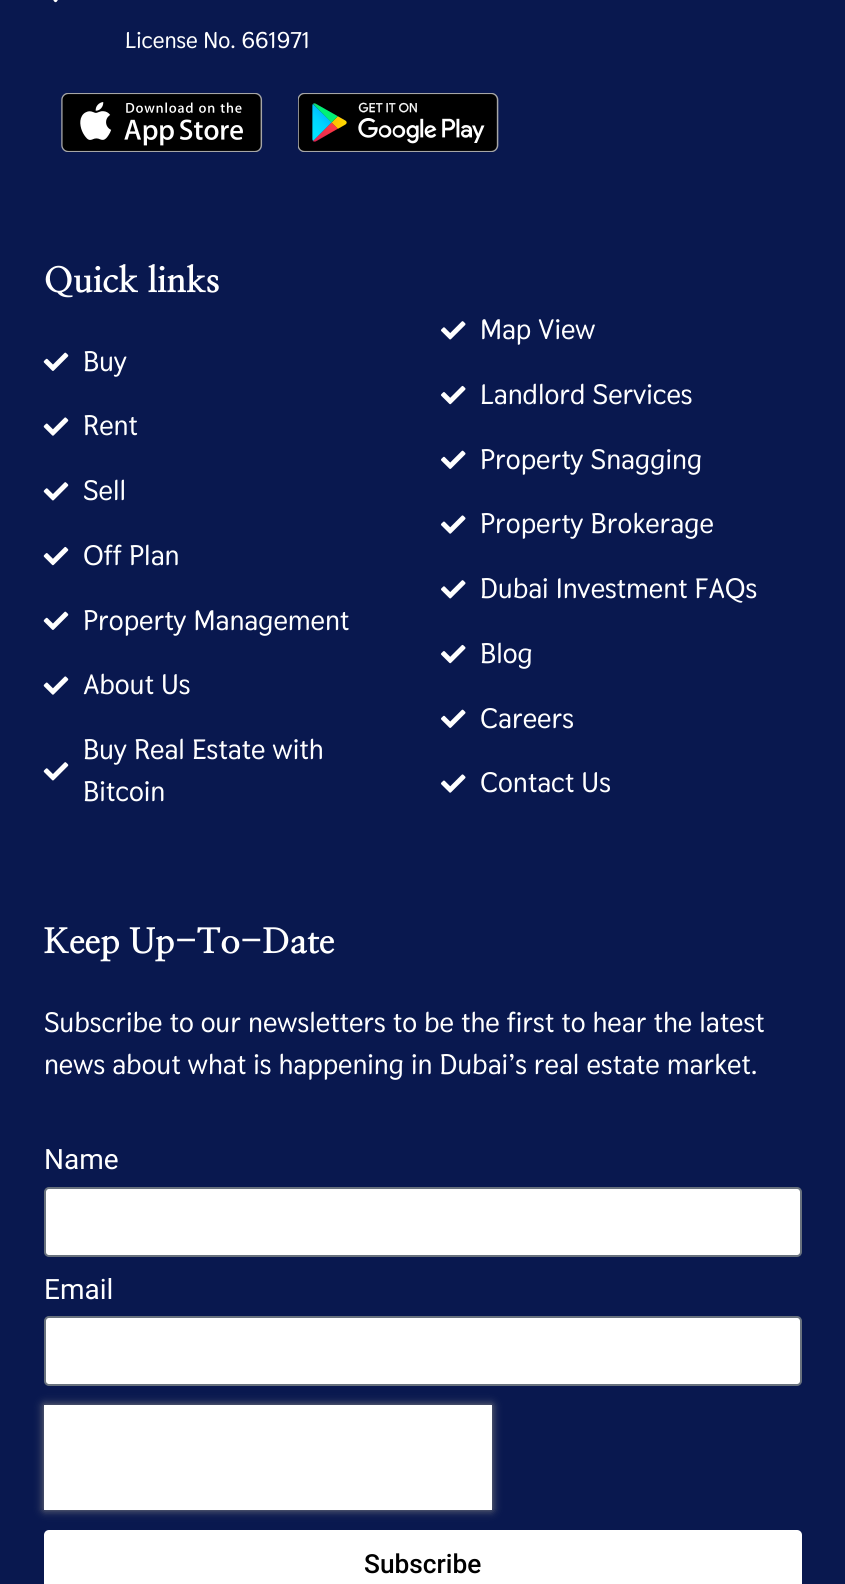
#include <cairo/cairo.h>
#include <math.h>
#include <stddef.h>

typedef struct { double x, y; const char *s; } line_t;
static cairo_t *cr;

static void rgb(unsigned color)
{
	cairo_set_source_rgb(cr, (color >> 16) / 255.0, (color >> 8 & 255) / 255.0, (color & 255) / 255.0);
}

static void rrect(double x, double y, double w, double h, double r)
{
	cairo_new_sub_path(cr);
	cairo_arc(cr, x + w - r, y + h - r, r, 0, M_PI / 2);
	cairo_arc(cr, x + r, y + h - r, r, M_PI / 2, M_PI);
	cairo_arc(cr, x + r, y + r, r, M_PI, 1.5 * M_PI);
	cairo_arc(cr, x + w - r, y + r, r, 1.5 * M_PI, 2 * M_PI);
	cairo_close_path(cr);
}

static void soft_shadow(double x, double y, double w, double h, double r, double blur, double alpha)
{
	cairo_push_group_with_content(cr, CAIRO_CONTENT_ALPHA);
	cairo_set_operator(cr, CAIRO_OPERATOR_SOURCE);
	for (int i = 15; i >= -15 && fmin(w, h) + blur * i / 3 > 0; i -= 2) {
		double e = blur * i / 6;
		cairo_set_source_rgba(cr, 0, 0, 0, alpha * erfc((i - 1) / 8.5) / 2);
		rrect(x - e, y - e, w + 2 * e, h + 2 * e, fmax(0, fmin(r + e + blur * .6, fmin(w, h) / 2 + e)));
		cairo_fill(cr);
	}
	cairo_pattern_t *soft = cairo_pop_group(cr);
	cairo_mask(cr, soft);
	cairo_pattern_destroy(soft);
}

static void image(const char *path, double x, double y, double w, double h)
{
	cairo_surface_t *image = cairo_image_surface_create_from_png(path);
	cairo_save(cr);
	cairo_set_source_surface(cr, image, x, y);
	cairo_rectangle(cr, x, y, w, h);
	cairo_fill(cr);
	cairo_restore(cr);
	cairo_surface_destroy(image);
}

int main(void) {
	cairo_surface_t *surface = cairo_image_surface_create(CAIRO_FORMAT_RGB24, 845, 1584);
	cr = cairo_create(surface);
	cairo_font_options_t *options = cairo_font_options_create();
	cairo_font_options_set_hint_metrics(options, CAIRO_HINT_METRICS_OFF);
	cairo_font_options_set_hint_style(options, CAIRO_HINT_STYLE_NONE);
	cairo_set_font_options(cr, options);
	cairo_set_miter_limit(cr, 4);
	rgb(0x09184f);
	cairo_paint(cr);
	image("img/1.png", 53, 0, 5, 3);
	image("img/2.png", 61, 93, 202, 59);
	image("img/3.png", 298, 93, 201, 59);
	image("img/4.png", 43, 352, 26, 19);
	image("img/5.png", 43, 417, 26, 19);
	image("img/6.png", 43, 482, 26, 19);
	image("img/7.png", 43, 546, 26, 20);
	image("img/4.png", 43, 611, 26, 19);
	image("img/5.png", 43, 676, 26, 19);
	image("img/6.png", 43, 762, 26, 19);
	image("img/8.png", 441, 321, 25, 19);
	image("img/9.png", 441, 385, 25, 20);
	image("img/10.png", 441, 450, 25, 19);
	image("img/11.png", 441, 515, 25, 19);
	image("img/8.png", 441, 580, 25, 19);
	image("img/9.png", 441, 644, 25, 20);
	image("img/10.png", 441, 709, 25, 19);
	image("img/11.png", 441, 774, 25, 19);
	rgb(0xffffff);
	rrect(45, 1188, 756, 68, 4);
	cairo_fill_preserve(cr);
	rgb(0x69727d);
	cairo_stroke(cr);
	rgb(0xffffff);
	rrect(45, 1317, 756, 68, 4);
	cairo_fill_preserve(cr);
	rgb(0x69727d);
	cairo_stroke(cr);
	rgb(0xffffff);
	cairo_rectangle(cr, 44, 1405, 448, 105);
	cairo_fill(cr);
	cairo_save(cr);
	cairo_set_fill_rule(cr, CAIRO_FILL_RULE_EVEN_ODD);
	cairo_new_path(cr);
	cairo_move_to(cr, 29, 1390);
	cairo_line_to(cr, 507, 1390);
	cairo_line_to(cr, 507, 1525);
	cairo_line_to(cr, 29, 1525);
	cairo_close_path(cr);
	cairo_move_to(cr, 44, 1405);
	cairo_line_to(cr, 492, 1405);
	cairo_line_to(cr, 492, 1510);
	cairo_line_to(cr, 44, 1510);
	cairo_close_path(cr);
	cairo_clip(cr);
	rgb(0x808080);
	soft_shadow(44, 1405, 448, 105, 0, 4.5, 1);
	cairo_restore(cr);
	rrect(44, 1530, 758, 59, 5);
	cairo_fill(cr);
	cairo_select_font_face(cr, "Thasadith", CAIRO_FONT_SLANT_NORMAL, CAIRO_FONT_WEIGHT_BOLD);
	cairo_set_font_size(cr, 22.75);
	cairo_move_to(cr, 125, 48);
	cairo_show_text(cr, "License No. 661971");
	cairo_select_font_face(cr, "NanumMyeongjo ExtraBold", CAIRO_FONT_SLANT_NORMAL, CAIRO_FONT_WEIGHT_NORMAL);
	cairo_set_font_size(cr, 35);
	cairo_move_to(cr, 44, 292);
	cairo_show_text(cr, "Quick links");
	cairo_select_font_face(cr, "Thasadith", CAIRO_FONT_SLANT_NORMAL, CAIRO_FONT_WEIGHT_BOLD);
	cairo_set_font_size(cr, 28);
	{
		static const line_t items[] = {
			{83, 371, "Buy"},
			{83, 435, "Rent"},
			{83, 500, "Sell"},
			{83, 565, "Off Plan"},
			{83, 630, "Property Management"},
			{83, 694, "About Us"},
			{83, 759, "Buy Real Estate with"},
			{83, 801, "Bitcoin"},
			{480, 339, "Map View"},
			{480, 404, "Landlord Services"},
			{480, 469, "Property Snagging"},
			{480, 533, "Property Brokerage"},
			{480, 598, "Dubai Investment FAQs"},
			{480, 663, "Blog"},
			{480, 728, "Careers"},
			{480, 792, "Contact Us"},
		};
		for (size_t i = 0; i < sizeof items / sizeof *items; i++) {
			cairo_move_to(cr, items[i].x, items[i].y);
			cairo_show_text(cr, items[i].s);
		}
	}
	cairo_select_font_face(cr, "NanumMyeongjo ExtraBold", CAIRO_FONT_SLANT_NORMAL, CAIRO_FONT_WEIGHT_NORMAL);
	cairo_set_font_size(cr, 35);
	cairo_move_to(cr, 44, 953);
	cairo_show_text(cr, "Keep Up-To-Date");
	cairo_select_font_face(cr, "Thasadith", CAIRO_FONT_SLANT_NORMAL, CAIRO_FONT_WEIGHT_BOLD);
	cairo_set_font_size(cr, 28);
	cairo_move_to(cr, 44, 1032);
	cairo_show_text(cr, "Subscribe to our newsletters to be the first to hear the latest");
	cairo_move_to(cr, 44, 1074);
	cairo_show_text(cr, "news about what is happening in Dubai’s real estate market.");
	cairo_select_font_face(cr, "Roboto", CAIRO_FONT_SLANT_NORMAL, CAIRO_FONT_WEIGHT_NORMAL);
	cairo_move_to(cr, 44, 1169);
	cairo_show_text(cr, "Name");
	cairo_move_to(cr, 44, 1299);
	cairo_show_text(cr, "Email");
	cairo_select_font_face(cr, "Roboto Medium", CAIRO_FONT_SLANT_NORMAL, CAIRO_FONT_WEIGHT_NORMAL);
	cairo_set_font_size(cr, 26.25);
	rgb(0x000000);
	cairo_move_to(cr, 364, 1573);
	cairo_show_text(cr, "Subscribe");
	cairo_surface_write_to_png(surface, "page.png");
	cairo_font_options_destroy(options);
	cairo_destroy(cr);
	cairo_surface_destroy(surface);
	return 0;
}
